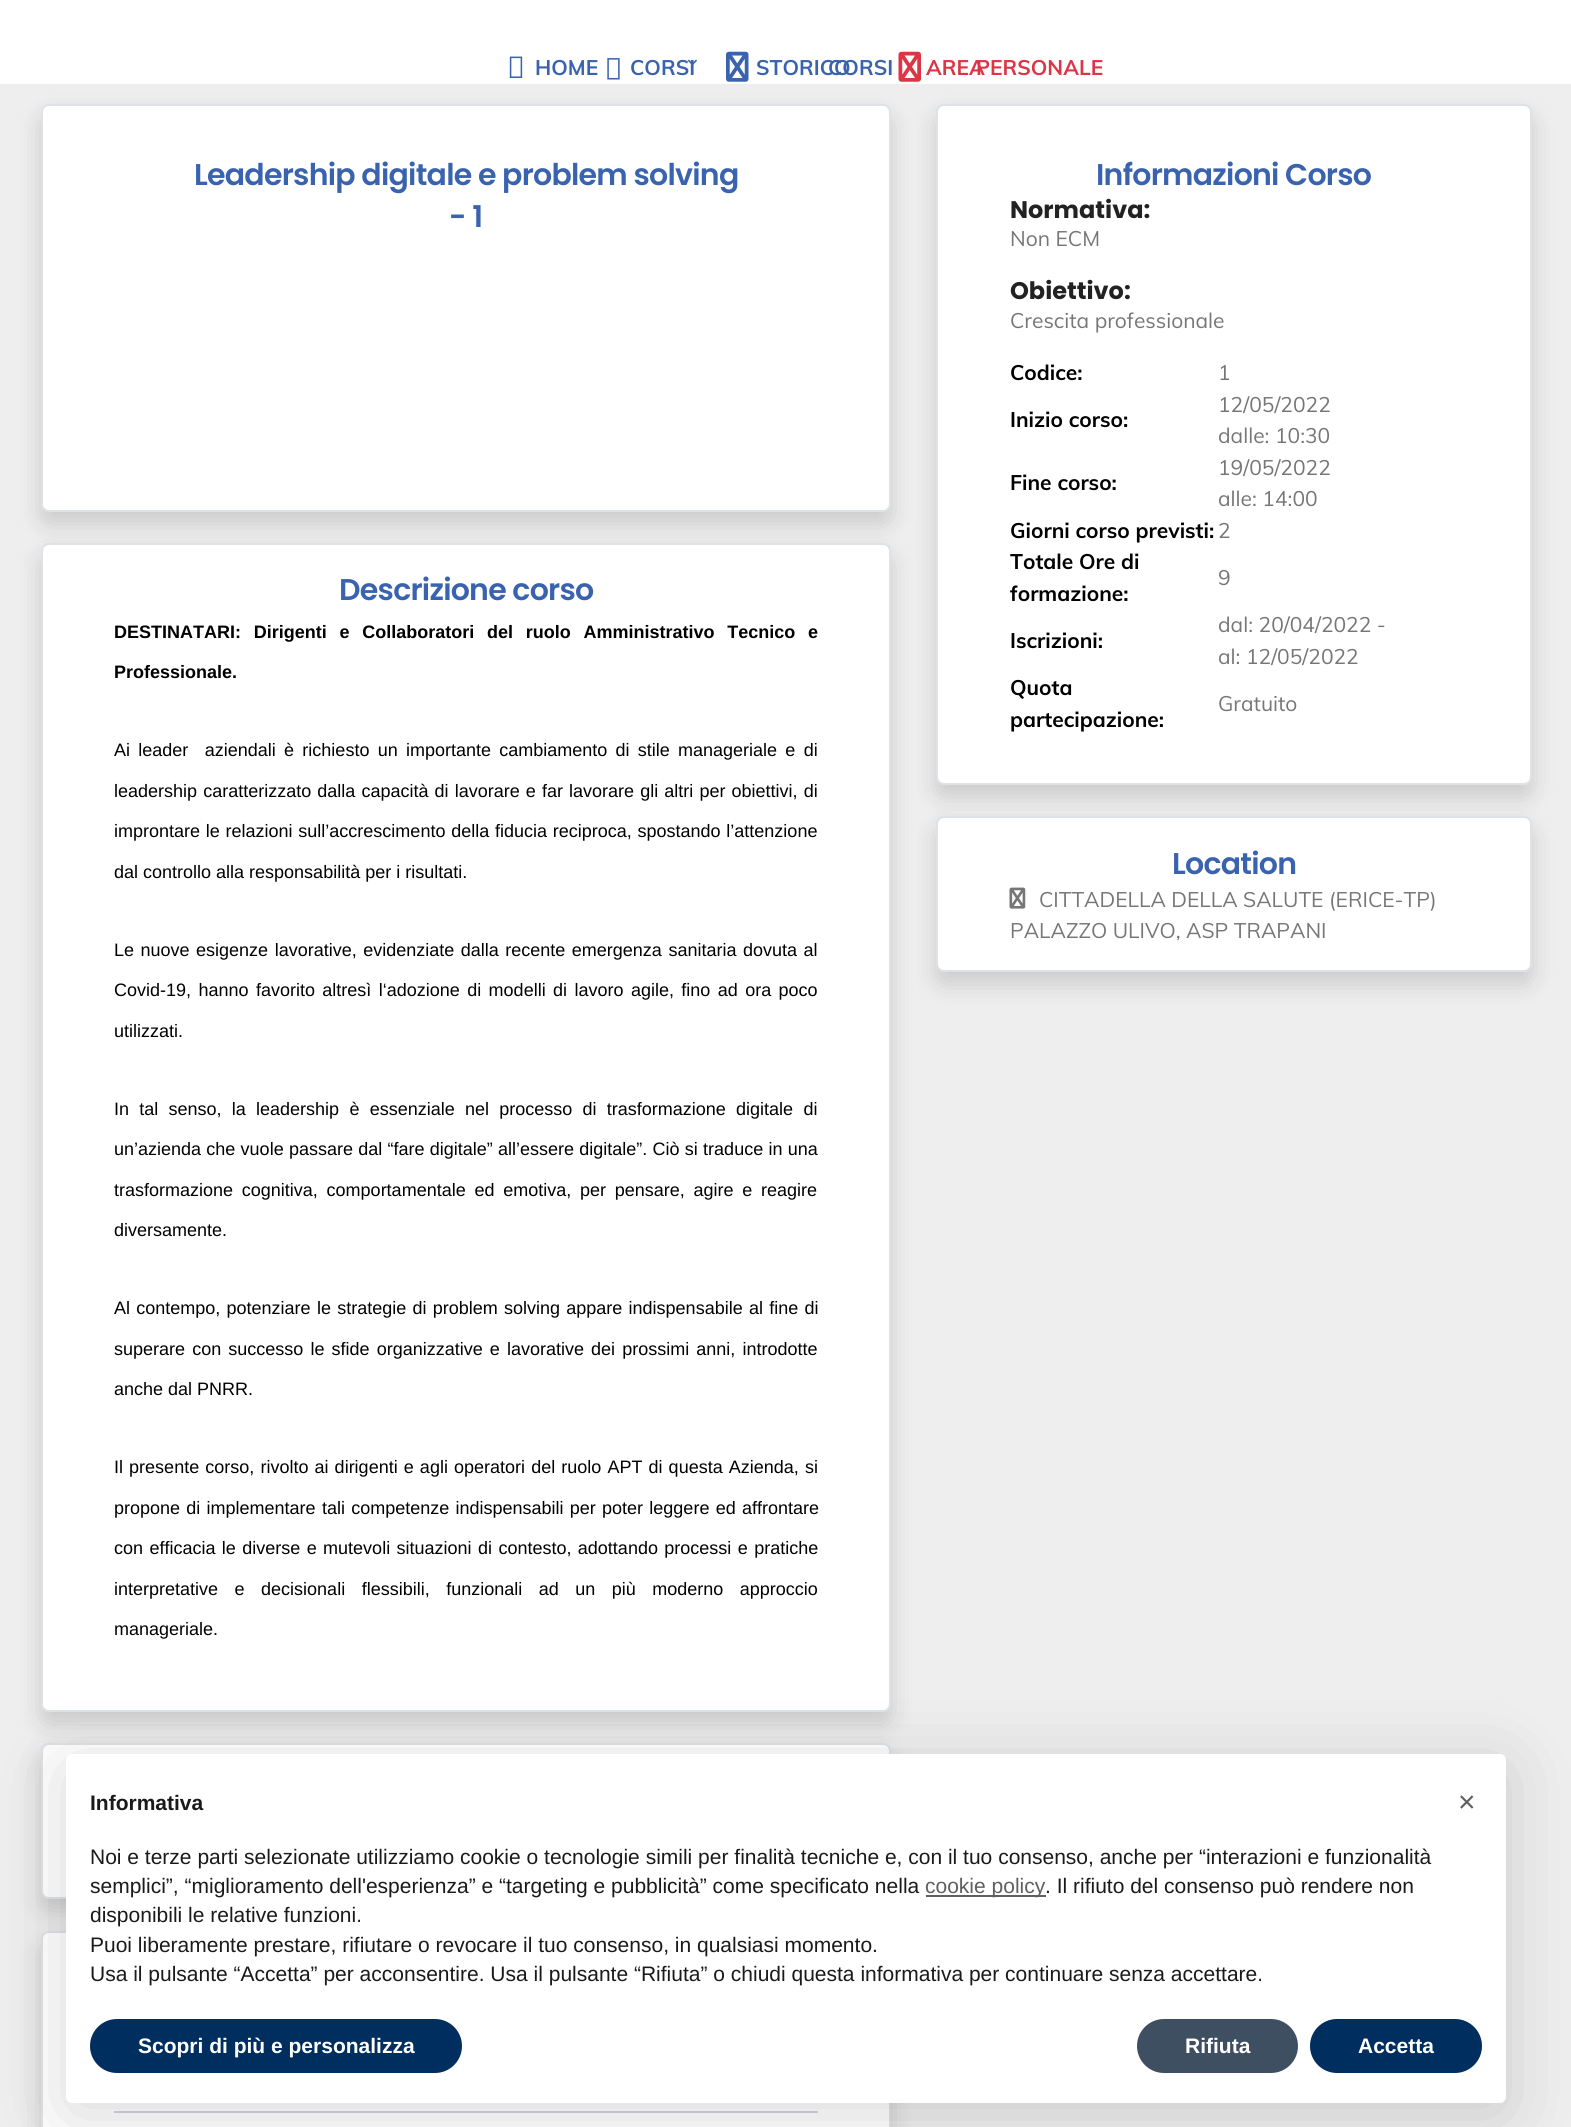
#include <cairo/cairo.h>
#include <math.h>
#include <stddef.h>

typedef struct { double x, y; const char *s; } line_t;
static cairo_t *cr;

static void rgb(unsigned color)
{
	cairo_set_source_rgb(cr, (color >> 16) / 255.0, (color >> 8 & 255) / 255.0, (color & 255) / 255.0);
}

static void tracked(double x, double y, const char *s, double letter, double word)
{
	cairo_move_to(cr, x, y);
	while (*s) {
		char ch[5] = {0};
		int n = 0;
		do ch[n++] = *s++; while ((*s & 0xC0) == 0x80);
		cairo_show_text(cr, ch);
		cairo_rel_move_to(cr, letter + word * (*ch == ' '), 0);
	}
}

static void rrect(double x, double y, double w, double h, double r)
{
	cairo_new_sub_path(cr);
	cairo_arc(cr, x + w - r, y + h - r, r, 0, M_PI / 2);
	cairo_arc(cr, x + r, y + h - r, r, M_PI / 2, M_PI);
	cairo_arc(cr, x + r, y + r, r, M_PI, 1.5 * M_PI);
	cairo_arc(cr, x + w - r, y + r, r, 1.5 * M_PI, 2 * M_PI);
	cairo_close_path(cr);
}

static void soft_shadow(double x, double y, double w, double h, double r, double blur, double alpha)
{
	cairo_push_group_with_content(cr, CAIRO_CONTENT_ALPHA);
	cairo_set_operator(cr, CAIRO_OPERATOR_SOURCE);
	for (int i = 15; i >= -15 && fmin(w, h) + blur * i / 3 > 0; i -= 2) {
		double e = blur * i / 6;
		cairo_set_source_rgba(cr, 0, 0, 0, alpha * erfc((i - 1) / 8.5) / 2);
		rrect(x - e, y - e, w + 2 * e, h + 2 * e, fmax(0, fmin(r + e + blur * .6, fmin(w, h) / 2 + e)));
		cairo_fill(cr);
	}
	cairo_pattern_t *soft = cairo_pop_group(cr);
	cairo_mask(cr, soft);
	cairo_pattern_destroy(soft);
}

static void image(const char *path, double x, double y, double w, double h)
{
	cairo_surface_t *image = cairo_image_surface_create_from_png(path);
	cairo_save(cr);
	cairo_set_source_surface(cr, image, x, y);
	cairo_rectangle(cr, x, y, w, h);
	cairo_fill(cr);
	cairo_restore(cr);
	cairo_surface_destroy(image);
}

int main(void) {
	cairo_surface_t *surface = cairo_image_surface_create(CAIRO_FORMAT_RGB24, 1571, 2127);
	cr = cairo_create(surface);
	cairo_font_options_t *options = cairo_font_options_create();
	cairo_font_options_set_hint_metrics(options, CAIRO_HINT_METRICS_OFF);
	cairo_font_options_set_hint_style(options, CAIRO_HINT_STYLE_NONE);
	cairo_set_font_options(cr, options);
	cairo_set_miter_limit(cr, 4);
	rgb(0xeeeeee);
	cairo_paint(cr);
	rgb(0x000000);
	soft_shadow(41, 116, 850, 408, 8, 12, 0.15);
	soft_shadow(936, 116, 596, 681, 8, 12, 0.15);
	rgb(0xffffff);
	cairo_rectangle(cr, 0, 0, 1571, 84);
	cairo_fill(cr);
	image("img/1.png", 509, 56, 14, 22);
	image("img/2.png", 607, 58, 13, 22);
	image("img/4.png", 726, 51, 23, 31);
	image("img/5.png", 898, 51, 23, 31);
	rrect(42, 105, 848, 406, 7);
	cairo_fill_preserve(cr);
	rgb(0xdee2e6);
	cairo_stroke(cr);
	rgb(0x000000);
	soft_shadow(41, 555, 850, 1169, 8, 12, 0.15);
	rgb(0xffffff);
	rrect(42, 544, 848, 1167, 7);
	cairo_fill_preserve(cr);
	rgb(0xdee2e6);
	cairo_stroke(cr);
	rgb(0x000000);
	soft_shadow(41, 1755, 850, 156, 8, 12, 0.15);
	rgb(0xffffff);
	rrect(42, 1744, 848, 154, 7);
	cairo_fill_preserve(cr);
	rgb(0xdee2e6);
	cairo_stroke(cr);
	rgb(0x000000);
	soft_shadow(41, 1943, 850, 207, 8, 12, 0.15);
	rgb(0xffffff);
	rrect(42, 1932, 848, 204, 7);
	cairo_fill_preserve(cr);
	rgb(0xdee2e6);
	cairo_stroke(cr);
	rgb(0xd1d5db);
	cairo_rectangle(cr, 114, 2111, 704, 2);
	cairo_fill(cr);
	rgb(0xffffff);
	rrect(937, 105, 594, 679, 7);
	cairo_fill_preserve(cr);
	rgb(0xdee2e6);
	cairo_stroke(cr);
	rgb(0x000000);
	soft_shadow(936, 828, 596, 156, 8, 12, 0.15);
	rgb(0xffffff);
	rrect(937, 817, 594, 154, 7);
	cairo_fill_preserve(cr);
	rgb(0xdee2e6);
	cairo_stroke(cr);
	image("img/6.png", 1009, 887, 17, 22);
	rgb(0x000000);
	soft_shadow(66, 1766, 1440, 349, 6, 36, 0.15);
	rgb(0xffffff);
	rrect(66, 1754, 1440, 349, 6);
	cairo_fill(cr);
	rgb(0x5f5f5f);
	cairo_rectangle(cr, 926, 1895, 120, 2);
	cairo_fill(cr);
	rgb(0x002e5f);
	rrect(90, 2019, 372, 54, 27);
	cairo_fill(cr);
	rgb(0x3f4f62);
	rrect(1137, 2019, 161, 54, 27);
	cairo_fill(cr);
	rgb(0x002e5f);
	rrect(1310, 2019, 172, 54, 27);
	cairo_fill(cr);
	cairo_select_font_face(cr, "Muli", CAIRO_FONT_SLANT_NORMAL, CAIRO_FONT_WEIGHT_BOLD);
	cairo_set_font_size(cr, 21);
	rgb(0x3a63af);
	cairo_move_to(cr, 535, 75);
	cairo_show_text(cr, "HOME");
	cairo_move_to(cr, 630, 75);
	cairo_show_text(cr, "CORSI");
	image("img/3.png", 687, 59, 10, 6);
	cairo_move_to(cr, 756, 75);
	cairo_show_text(cr, "STORICO");
	cairo_move_to(cr, 828, 75);
	cairo_show_text(cr, "CORSI");
	rgb(0xdc3545);
	cairo_move_to(cr, 926, 75);
	cairo_show_text(cr, "AREA");
	cairo_move_to(cr, 976, 75);
	cairo_show_text(cr, "PERSONALE");
	cairo_select_font_face(cr, "Poppins SemiBold", CAIRO_FONT_SLANT_NORMAL, CAIRO_FONT_WEIGHT_NORMAL);
	cairo_set_font_size(cr, 30);
	rgb(0x3a63af);
	{
		static const line_t items[] = {
			{194, 185, "Leadership digitale e problem solving"},
			{449, 227, "- 1"},
			{339, 600, "Descrizione corso"},
		};
		for (size_t i = 0; i < sizeof items / sizeof *items; i++) {
			tracked(items[i].x, items[i].y, items[i].s, -0.75, 0);
		}
	}
	cairo_select_font_face(cr, "Liberation Sans", CAIRO_FONT_SLANT_NORMAL, CAIRO_FONT_WEIGHT_BOLD);
	cairo_set_font_size(cr, 18);
	rgb(0x000000);
	tracked(114, 638, "DESTINATARI: Dirigenti e Collaboratori del ruolo Amministrativo Tecnico e", 0, 7.75);
	cairo_move_to(cr, 114, 678);
	cairo_show_text(cr, "Professionale.");
	cairo_select_font_face(cr, "Liberation Sans", CAIRO_FONT_SLANT_NORMAL, CAIRO_FONT_WEIGHT_NORMAL);
	tracked(114, 756, "Ai leader  aziendali è richiesto un importante cambiamento di stile manageriale e di", 0, 3.25);
	tracked(114, 797, "leadership caratterizzato dalla capacità di lavorare e far lavorare gli altri per obiettivi, di", 0, 1.1);
	tracked(114, 837, "improntare le relazioni sull’accrescimento della fiducia reciproca, spostando l’attenzione", 0, 0.75);
	cairo_move_to(cr, 114, 878);
	cairo_show_text(cr, "dal controllo alla responsabilità per i risultati.");
	tracked(114, 956, "Le nuove esigenze lavorative, evidenziate dalla recente emergenza sanitaria dovuta al", 0, 1.5);
	tracked(114, 996, "Covid-19, hanno favorito altresì l‘adozione di modelli di lavoro agile, fino ad ora poco", 0, 2.4);
	cairo_move_to(cr, 114, 1037);
	cairo_show_text(cr, "utilizzati.");
	tracked(114, 1115, "In tal senso, la leadership è essenziale nel processo di trasformazione digitale di", 0, 5.25);
	tracked(114, 1155, "un’azienda che vuole passare dal “fare digitale” all’essere digitale”. Ciò si traduce in una", 0, 0.25);
	tracked(114, 1196, "trasformazione cognitiva, comportamentale ed emotiva, per pensare, agire e reagire", 0, 3.75);
	cairo_move_to(cr, 114, 1236);
	cairo_show_text(cr, "diversamente.");
	tracked(114, 1314, "Al contempo, potenziare le strategie di problem solving appare indispensabile al fine di", 0, 1.25);
	tracked(114, 1355, "superare con successo le sfide organizzative e lavorative dei prossimi anni, introdotte", 0, 2.1);
	cairo_move_to(cr, 114, 1395);
	cairo_show_text(cr, "anche dal PNRR.");
	tracked(114, 1473, "Il presente corso, rivolto ai dirigenti e agli operatori del ruolo APT di questa Azienda, si", 0, 1.1);
	tracked(114, 1514, "propone di implementare tali competenze indispensabili per poter leggere ed affrontare", 0, 1.25);
	tracked(114, 1554, "con efficacia le diverse e mutevoli situazioni di contesto, adottando processi e pratiche", 0, 1.4);
	tracked(114, 1595, "interpretative e decisionali flessibili, funzionali ad un più moderno approccio", 0, 11.5);
	cairo_move_to(cr, 114, 1635);
	cairo_show_text(cr, "manageriale.");
	cairo_select_font_face(cr, "Poppins SemiBold", CAIRO_FONT_SLANT_NORMAL, CAIRO_FONT_WEIGHT_NORMAL);
	cairo_set_font_size(cr, 30);
	rgb(0x3a63af);
	tracked(1096, 185, "Informazioni Corso", -0.75, 0);
	cairo_select_font_face(cr, "Poppins", CAIRO_FONT_SLANT_NORMAL, CAIRO_FONT_WEIGHT_BOLD);
	cairo_set_font_size(cr, 24);
	rgb(0x222222);
	cairo_move_to(cr, 1010, 218);
	cairo_show_text(cr, "Normativa:");
	cairo_select_font_face(cr, "Muli", CAIRO_FONT_SLANT_NORMAL, CAIRO_FONT_WEIGHT_NORMAL);
	cairo_set_font_size(cr, 21);
	rgb(0x767676);
	cairo_move_to(cr, 1010, 246);
	cairo_show_text(cr, "Non ECM");
	cairo_select_font_face(cr, "Poppins", CAIRO_FONT_SLANT_NORMAL, CAIRO_FONT_WEIGHT_BOLD);
	cairo_set_font_size(cr, 24);
	rgb(0x222222);
	cairo_move_to(cr, 1010, 299);
	cairo_show_text(cr, "Obiettivo:");
	cairo_select_font_face(cr, "Muli", CAIRO_FONT_SLANT_NORMAL, CAIRO_FONT_WEIGHT_NORMAL);
	cairo_set_font_size(cr, 21);
	rgb(0x767676);
	cairo_move_to(cr, 1010, 328);
	cairo_show_text(cr, "Crescita professionale");
	cairo_select_font_face(cr, "Muli", CAIRO_FONT_SLANT_NORMAL, CAIRO_FONT_WEIGHT_BOLD);
	rgb(0x000000);
	cairo_move_to(cr, 1010, 380);
	cairo_show_text(cr, "Codice:");
	cairo_select_font_face(cr, "Muli", CAIRO_FONT_SLANT_NORMAL, CAIRO_FONT_WEIGHT_NORMAL);
	rgb(0x767676);
	cairo_move_to(cr, 1218, 380);
	cairo_show_text(cr, "1");
	cairo_select_font_face(cr, "Muli", CAIRO_FONT_SLANT_NORMAL, CAIRO_FONT_WEIGHT_BOLD);
	rgb(0x000000);
	cairo_move_to(cr, 1010, 427);
	cairo_show_text(cr, "Inizio corso:");
	cairo_select_font_face(cr, "Muli", CAIRO_FONT_SLANT_NORMAL, CAIRO_FONT_WEIGHT_NORMAL);
	rgb(0x767676);
	cairo_move_to(cr, 1218, 412);
	cairo_show_text(cr, "12/05/2022");
	cairo_move_to(cr, 1218, 443);
	cairo_show_text(cr, "dalle: 10:30");
	cairo_select_font_face(cr, "Muli", CAIRO_FONT_SLANT_NORMAL, CAIRO_FONT_WEIGHT_BOLD);
	rgb(0x000000);
	cairo_move_to(cr, 1010, 490);
	cairo_show_text(cr, "Fine corso:");
	cairo_select_font_face(cr, "Muli", CAIRO_FONT_SLANT_NORMAL, CAIRO_FONT_WEIGHT_NORMAL);
	rgb(0x767676);
	cairo_move_to(cr, 1218, 475);
	cairo_show_text(cr, "19/05/2022");
	cairo_move_to(cr, 1218, 506);
	cairo_show_text(cr, "alle: 14:00");
	cairo_select_font_face(cr, "Muli", CAIRO_FONT_SLANT_NORMAL, CAIRO_FONT_WEIGHT_BOLD);
	rgb(0x000000);
	cairo_move_to(cr, 1010, 538);
	cairo_show_text(cr, "Giorni corso previsti:");
	cairo_select_font_face(cr, "Muli", CAIRO_FONT_SLANT_NORMAL, CAIRO_FONT_WEIGHT_NORMAL);
	rgb(0x767676);
	cairo_move_to(cr, 1218, 538);
	cairo_show_text(cr, "2");
	cairo_select_font_face(cr, "Muli", CAIRO_FONT_SLANT_NORMAL, CAIRO_FONT_WEIGHT_BOLD);
	rgb(0x000000);
	cairo_move_to(cr, 1010, 569);
	cairo_show_text(cr, "Totale Ore di");
	cairo_move_to(cr, 1010, 601);
	cairo_show_text(cr, "formazione:");
	cairo_select_font_face(cr, "Muli", CAIRO_FONT_SLANT_NORMAL, CAIRO_FONT_WEIGHT_NORMAL);
	rgb(0x767676);
	cairo_move_to(cr, 1218, 585);
	cairo_show_text(cr, "9");
	cairo_select_font_face(cr, "Muli", CAIRO_FONT_SLANT_NORMAL, CAIRO_FONT_WEIGHT_BOLD);
	rgb(0x000000);
	cairo_move_to(cr, 1010, 648);
	cairo_show_text(cr, "Iscrizioni:");
	cairo_select_font_face(cr, "Muli", CAIRO_FONT_SLANT_NORMAL, CAIRO_FONT_WEIGHT_NORMAL);
	rgb(0x767676);
	cairo_move_to(cr, 1218, 632);
	cairo_show_text(cr, "dal: 20/04/2022 -");
	cairo_move_to(cr, 1218, 664);
	cairo_show_text(cr, "al: 12/05/2022");
	cairo_select_font_face(cr, "Muli", CAIRO_FONT_SLANT_NORMAL, CAIRO_FONT_WEIGHT_BOLD);
	rgb(0x000000);
	cairo_move_to(cr, 1010, 695);
	cairo_show_text(cr, "Quota");
	cairo_move_to(cr, 1010, 727);
	cairo_show_text(cr, "partecipazione:");
	cairo_select_font_face(cr, "Muli", CAIRO_FONT_SLANT_NORMAL, CAIRO_FONT_WEIGHT_NORMAL);
	rgb(0x767676);
	cairo_move_to(cr, 1218, 711);
	cairo_show_text(cr, "Gratuito");
	cairo_select_font_face(cr, "Poppins SemiBold", CAIRO_FONT_SLANT_NORMAL, CAIRO_FONT_WEIGHT_NORMAL);
	cairo_set_font_size(cr, 30);
	rgb(0x3a63af);
	tracked(1172, 874, "Location", -0.75, 0);
	cairo_select_font_face(cr, "Muli", CAIRO_FONT_SLANT_NORMAL, CAIRO_FONT_WEIGHT_NORMAL);
	cairo_set_font_size(cr, 21);
	rgb(0x767676);
	cairo_move_to(cr, 1039, 907);
	cairo_show_text(cr, "CITTADELLA DELLA SALUTE (ERICE-TP)");
	cairo_move_to(cr, 1010, 938);
	cairo_show_text(cr, "PALAZZO ULIVO, ASP TRAPANI");
	cairo_select_font_face(cr, "Liberation Sans", CAIRO_FONT_SLANT_NORMAL, CAIRO_FONT_WEIGHT_BOLD);
	rgb(0x1a1a1a);
	cairo_move_to(cr, 90, 1810);
	cairo_show_text(cr, "Informativa");
	cairo_select_font_face(cr, "Liberation Sans", CAIRO_FONT_SLANT_NORMAL, CAIRO_FONT_WEIGHT_NORMAL);
	cairo_move_to(cr, 90, 1864);
	cairo_show_text(cr, "Noi e terze parti selezionate utilizziamo cookie o tecnologie simili per finalità tecniche e, con il tuo consenso, anche per “interazioni e funzionalità");
	cairo_move_to(cr, 90, 1893);
	cairo_show_text(cr, "semplici”, “miglioramento dell'esperienza” e “targeting e pubblicità” come specificato nella");
	rgb(0x5f5f5f);
	cairo_move_to(cr, 925, 1893);
	cairo_show_text(cr, "cookie policy");
	rgb(0x1a1a1a);
	{
		static const line_t items[] = {
			{1045, 1893, ". Il rifiuto del consenso può rendere non"},
			{90, 1922, "disponibili le relative funzioni."},
			{90, 1952, "Puoi liberamente prestare, rifiutare o revocare il tuo consenso, in qualsiasi momento."},
			{90, 1981, "Usa il pulsante “Accetta” per acconsentire. Usa il pulsante “Rifiuta” o chiudi questa informativa per continuare senza accettare."},
		};
		for (size_t i = 0; i < sizeof items / sizeof *items; i++) {
			cairo_move_to(cr, items[i].x, items[i].y);
			cairo_show_text(cr, items[i].s);
		}
	}
	cairo_set_font_size(cr, 30);
	rgb(0x5f5f5f);
	cairo_move_to(cr, 1458, 1812);
	cairo_show_text(cr, "×");
	cairo_select_font_face(cr, "Liberation Sans", CAIRO_FONT_SLANT_NORMAL, CAIRO_FONT_WEIGHT_BOLD);
	cairo_set_font_size(cr, 21);
	rgb(0xffffff);
	{
		static const line_t items[] = {
			{138, 2053, "Scopri di più e personalizza"},
			{1185, 2053, "Rifiuta"},
			{1358, 2053, "Accetta"},
		};
		for (size_t i = 0; i < sizeof items / sizeof *items; i++) {
			cairo_move_to(cr, items[i].x, items[i].y);
			cairo_show_text(cr, items[i].s);
		}
	}
	cairo_surface_write_to_png(surface, "page.png");
	cairo_font_options_destroy(options);
	cairo_destroy(cr);
	cairo_surface_destroy(surface);
	return 0;
}
